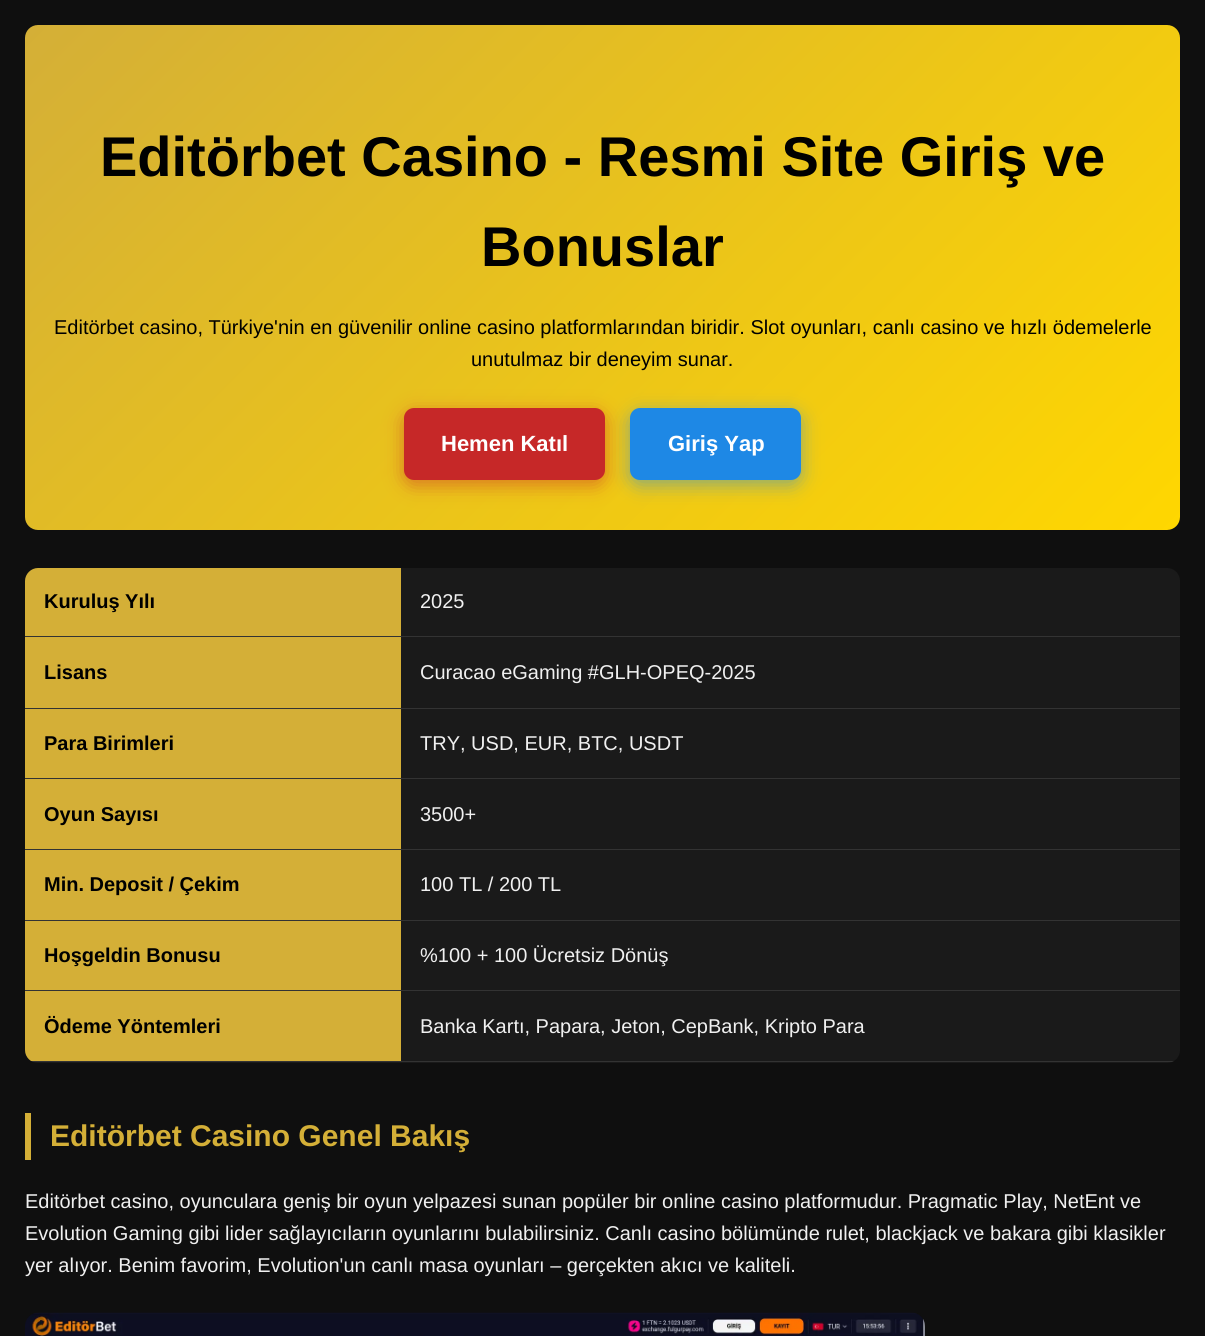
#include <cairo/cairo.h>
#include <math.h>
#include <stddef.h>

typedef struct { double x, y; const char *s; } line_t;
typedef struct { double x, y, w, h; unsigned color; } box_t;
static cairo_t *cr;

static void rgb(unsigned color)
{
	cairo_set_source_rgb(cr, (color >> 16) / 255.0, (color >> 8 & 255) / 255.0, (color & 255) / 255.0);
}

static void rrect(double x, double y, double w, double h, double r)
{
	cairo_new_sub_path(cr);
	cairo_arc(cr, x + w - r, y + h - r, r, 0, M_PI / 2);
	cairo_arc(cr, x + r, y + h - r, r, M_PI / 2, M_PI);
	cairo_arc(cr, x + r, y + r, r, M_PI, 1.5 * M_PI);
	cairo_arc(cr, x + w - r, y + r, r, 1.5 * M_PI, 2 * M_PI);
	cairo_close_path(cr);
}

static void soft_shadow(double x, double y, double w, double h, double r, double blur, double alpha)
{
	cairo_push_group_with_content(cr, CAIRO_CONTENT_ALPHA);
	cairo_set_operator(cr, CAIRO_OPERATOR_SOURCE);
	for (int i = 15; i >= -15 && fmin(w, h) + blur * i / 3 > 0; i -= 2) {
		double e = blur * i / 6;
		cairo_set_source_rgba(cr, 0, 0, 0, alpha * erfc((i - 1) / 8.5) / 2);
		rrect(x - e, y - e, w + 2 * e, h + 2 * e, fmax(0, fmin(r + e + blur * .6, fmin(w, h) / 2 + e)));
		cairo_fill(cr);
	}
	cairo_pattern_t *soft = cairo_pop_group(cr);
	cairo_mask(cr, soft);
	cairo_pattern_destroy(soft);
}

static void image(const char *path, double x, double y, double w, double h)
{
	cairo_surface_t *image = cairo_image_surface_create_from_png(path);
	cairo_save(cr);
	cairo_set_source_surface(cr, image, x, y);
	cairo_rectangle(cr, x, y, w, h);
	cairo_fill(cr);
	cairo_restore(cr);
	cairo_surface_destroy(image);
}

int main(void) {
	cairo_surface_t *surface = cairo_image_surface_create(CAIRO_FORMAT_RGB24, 1205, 1336);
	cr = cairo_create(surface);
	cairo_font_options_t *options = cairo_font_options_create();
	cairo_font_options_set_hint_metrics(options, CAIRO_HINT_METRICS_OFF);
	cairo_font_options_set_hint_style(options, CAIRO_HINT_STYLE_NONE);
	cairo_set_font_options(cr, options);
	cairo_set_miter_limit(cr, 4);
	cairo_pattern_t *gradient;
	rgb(0x0f0f0f);
	cairo_paint(cr);
	gradient = cairo_pattern_create_linear(187, -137, 1018, 693);
	cairo_pattern_add_color_stop_rgba(gradient, 0, 0.831, 0.686, 0.216, 1);
	cairo_pattern_add_color_stop_rgba(gradient, 1, 1, 0.843, 0, 1);
	cairo_set_source(cr, gradient);
	cairo_pattern_destroy(gradient);
	rrect(25, 25, 1155, 505, 13);
	cairo_fill(cr);
	rgb(0xc62828);
	soft_shadow(404, 413, 201, 72, 10, 9.5, 0.5);
	rgb(0xc62828);
	rrect(404, 408, 201, 72, 10);
	cairo_fill(cr);
	rgb(0x1e88e5);
	soft_shadow(630, 413, 171, 72, 10, 9.5, 0.5);
	rgb(0x1e88e5);
	rrect(630, 408, 171, 72, 10);
	cairo_fill(cr);
	rgb(0x1a1a1a);
	rrect(25, 568, 1155, 495, 13);
	cairo_fill(cr);
	rgb(0xd4af37);
	cairo_new_path(cr);
	cairo_move_to(cr, 38, 568);
	cairo_line_to(cr, 401, 568);
	cairo_line_to(cr, 401, 638);
	cairo_line_to(cr, 25, 638);
	cairo_line_to(cr, 25, 581);
	cairo_curve_to(cr, 25, 574, 31, 568, 38, 568);
	cairo_close_path(cr);
	cairo_fill(cr);
	{
		static const box_t items[] = {
			{25, 636, 1155, 1, 0x333333},
			{25, 638, 376, 70, 0xd4af37},
			{25, 708, 1155, 1, 0x333333},
			{25, 709, 376, 69, 0xd4af37},
			{25, 778, 1155, 1, 0x333333},
			{25, 779, 376, 70, 0xd4af37},
			{25, 849, 1155, 1, 0x333333},
			{25, 850, 376, 70, 0xd4af37},
			{25, 920, 1155, 1, 0x333333},
			{25, 921, 376, 69, 0xd4af37},
			{25, 990, 1155, 1, 0x333333},
		};
		for (size_t i = 0; i < sizeof items / sizeof *items; i++) {
			rgb(items[i].color);
			cairo_rectangle(cr, items[i].x, items[i].y, items[i].w, items[i].h);
			cairo_fill(cr);
		}
	}
	cairo_save(cr);
	rrect(25, 568, 1155, 495, 13);
	cairo_clip(cr);
	{
		static const box_t items[] = {
			{25, 991, 376, 70, 0xd4af37},
			{401, 1061, 779, 1, 0x333333},
			{25, 1061, 378, 1, 0x333333},
		};
		for (size_t i = 0; i < sizeof items / sizeof *items; i++) {
			rgb(items[i].color);
			cairo_rectangle(cr, items[i].x, items[i].y, items[i].w, items[i].h);
			cairo_fill(cr);
		}
	}
	cairo_restore(cr);
	rgb(0xd4af37);
	cairo_rectangle(cr, 25, 1113, 6, 47);
	cairo_fill(cr);
	image("img/1.png", 25, 1312, 900, 24);
	cairo_select_font_face(cr, "Liberation Sans", CAIRO_FONT_SLANT_NORMAL, CAIRO_FONT_WEIGHT_BOLD);
	cairo_set_font_size(cr, 56);
	rgb(0x000000);
	cairo_move_to(cr, 100, 176);
	cairo_show_text(cr, "Editörbet Casino - Resmi Site Giriş ve");
	cairo_move_to(cr, 481, 266);
	cairo_show_text(cr, "Bonuslar");
	cairo_select_font_face(cr, "Liberation Sans", CAIRO_FONT_SLANT_NORMAL, CAIRO_FONT_WEIGHT_NORMAL);
	cairo_set_font_size(cr, 20);
	cairo_move_to(cr, 54, 334);
	cairo_show_text(cr, "Editörbet casino, Türkiye'nin en güvenilir online casino platformlarından biridir. Slot oyunları, canlı casino ve hızlı ödemelerle");
	cairo_move_to(cr, 471, 366);
	cairo_show_text(cr, "unutulmaz bir deneyim sunar.");
	cairo_select_font_face(cr, "Liberation Sans", CAIRO_FONT_SLANT_NORMAL, CAIRO_FONT_WEIGHT_BOLD);
	cairo_set_font_size(cr, 22);
	rgb(0xffffff);
	cairo_move_to(cr, 441, 451);
	cairo_show_text(cr, "Hemen Katıl");
	cairo_move_to(cr, 668, 451);
	cairo_show_text(cr, "Giriş Yap");
	cairo_set_font_size(cr, 20);
	rgb(0x000000);
	cairo_move_to(cr, 44, 608);
	cairo_show_text(cr, "Kuruluş Yılı");
	cairo_select_font_face(cr, "Liberation Sans", CAIRO_FONT_SLANT_NORMAL, CAIRO_FONT_WEIGHT_NORMAL);
	rgb(0xf0f0f0);
	cairo_move_to(cr, 420, 608);
	cairo_show_text(cr, "2025");
	cairo_select_font_face(cr, "Liberation Sans", CAIRO_FONT_SLANT_NORMAL, CAIRO_FONT_WEIGHT_BOLD);
	rgb(0x000000);
	cairo_move_to(cr, 44, 679);
	cairo_show_text(cr, "Lisans");
	cairo_select_font_face(cr, "Liberation Sans", CAIRO_FONT_SLANT_NORMAL, CAIRO_FONT_WEIGHT_NORMAL);
	rgb(0xf0f0f0);
	cairo_move_to(cr, 420, 679);
	cairo_show_text(cr, "Curacao eGaming #GLH-OPEQ-2025");
	cairo_select_font_face(cr, "Liberation Sans", CAIRO_FONT_SLANT_NORMAL, CAIRO_FONT_WEIGHT_BOLD);
	rgb(0x000000);
	cairo_move_to(cr, 44, 750);
	cairo_show_text(cr, "Para Birimleri");
	cairo_select_font_face(cr, "Liberation Sans", CAIRO_FONT_SLANT_NORMAL, CAIRO_FONT_WEIGHT_NORMAL);
	rgb(0xf0f0f0);
	cairo_move_to(cr, 420, 750);
	cairo_show_text(cr, "TRY, USD, EUR, BTC, USDT");
	cairo_select_font_face(cr, "Liberation Sans", CAIRO_FONT_SLANT_NORMAL, CAIRO_FONT_WEIGHT_BOLD);
	rgb(0x000000);
	cairo_move_to(cr, 44, 821);
	cairo_show_text(cr, "Oyun Sayısı");
	cairo_select_font_face(cr, "Liberation Sans", CAIRO_FONT_SLANT_NORMAL, CAIRO_FONT_WEIGHT_NORMAL);
	rgb(0xf0f0f0);
	cairo_move_to(cr, 420, 821);
	cairo_show_text(cr, "3500+");
	cairo_select_font_face(cr, "Liberation Sans", CAIRO_FONT_SLANT_NORMAL, CAIRO_FONT_WEIGHT_BOLD);
	rgb(0x000000);
	cairo_move_to(cr, 44, 891);
	cairo_show_text(cr, "Min. Deposit / Çekim");
	cairo_select_font_face(cr, "Liberation Sans", CAIRO_FONT_SLANT_NORMAL, CAIRO_FONT_WEIGHT_NORMAL);
	rgb(0xf0f0f0);
	cairo_move_to(cr, 420, 891);
	cairo_show_text(cr, "100 TL / 200 TL");
	cairo_select_font_face(cr, "Liberation Sans", CAIRO_FONT_SLANT_NORMAL, CAIRO_FONT_WEIGHT_BOLD);
	rgb(0x000000);
	cairo_move_to(cr, 44, 962);
	cairo_show_text(cr, "Hoşgeldin Bonusu");
	cairo_select_font_face(cr, "Liberation Sans", CAIRO_FONT_SLANT_NORMAL, CAIRO_FONT_WEIGHT_NORMAL);
	rgb(0xf0f0f0);
	cairo_move_to(cr, 420, 962);
	cairo_show_text(cr, "%100 + 100 Ücretsiz Dönüş");
	cairo_select_font_face(cr, "Liberation Sans", CAIRO_FONT_SLANT_NORMAL, CAIRO_FONT_WEIGHT_BOLD);
	rgb(0x000000);
	cairo_move_to(cr, 44, 1033);
	cairo_show_text(cr, "Ödeme Yöntemleri");
	cairo_select_font_face(cr, "Liberation Sans", CAIRO_FONT_SLANT_NORMAL, CAIRO_FONT_WEIGHT_NORMAL);
	rgb(0xf0f0f0);
	cairo_move_to(cr, 420, 1033);
	cairo_show_text(cr, "Banka Kartı, Papara, Jeton, CepBank, Kripto Para");
	cairo_select_font_face(cr, "Liberation Sans", CAIRO_FONT_SLANT_NORMAL, CAIRO_FONT_WEIGHT_BOLD);
	cairo_set_font_size(cr, 30);
	rgb(0xd4af37);
	cairo_move_to(cr, 50, 1146);
	cairo_show_text(cr, "Editörbet Casino Genel Bakış");
	cairo_select_font_face(cr, "Liberation Sans", CAIRO_FONT_SLANT_NORMAL, CAIRO_FONT_WEIGHT_NORMAL);
	cairo_set_font_size(cr, 20);
	rgb(0xf0f0f0);
	{
		static const line_t items[] = {
			{25, 1208, "Editörbet casino, oyunculara geniş bir oyun yelpazesi sunan popüler bir online casino platformudur. Pragmatic Play, NetEnt ve"},
			{25, 1240, "Evolution Gaming gibi lider sağlayıcıların oyunlarını bulabilirsiniz. Canlı casino bölümünde rulet, blackjack ve bakara gibi klasikler"},
			{25, 1272, "yer alıyor. Benim favorim, Evolution'un canlı masa oyunları – gerçekten akıcı ve kaliteli."},
		};
		for (size_t i = 0; i < sizeof items / sizeof *items; i++) {
			cairo_move_to(cr, items[i].x, items[i].y);
			cairo_show_text(cr, items[i].s);
		}
	}
	cairo_surface_write_to_png(surface, "page.png");
	cairo_font_options_destroy(options);
	cairo_destroy(cr);
	cairo_surface_destroy(surface);
	return 0;
}
